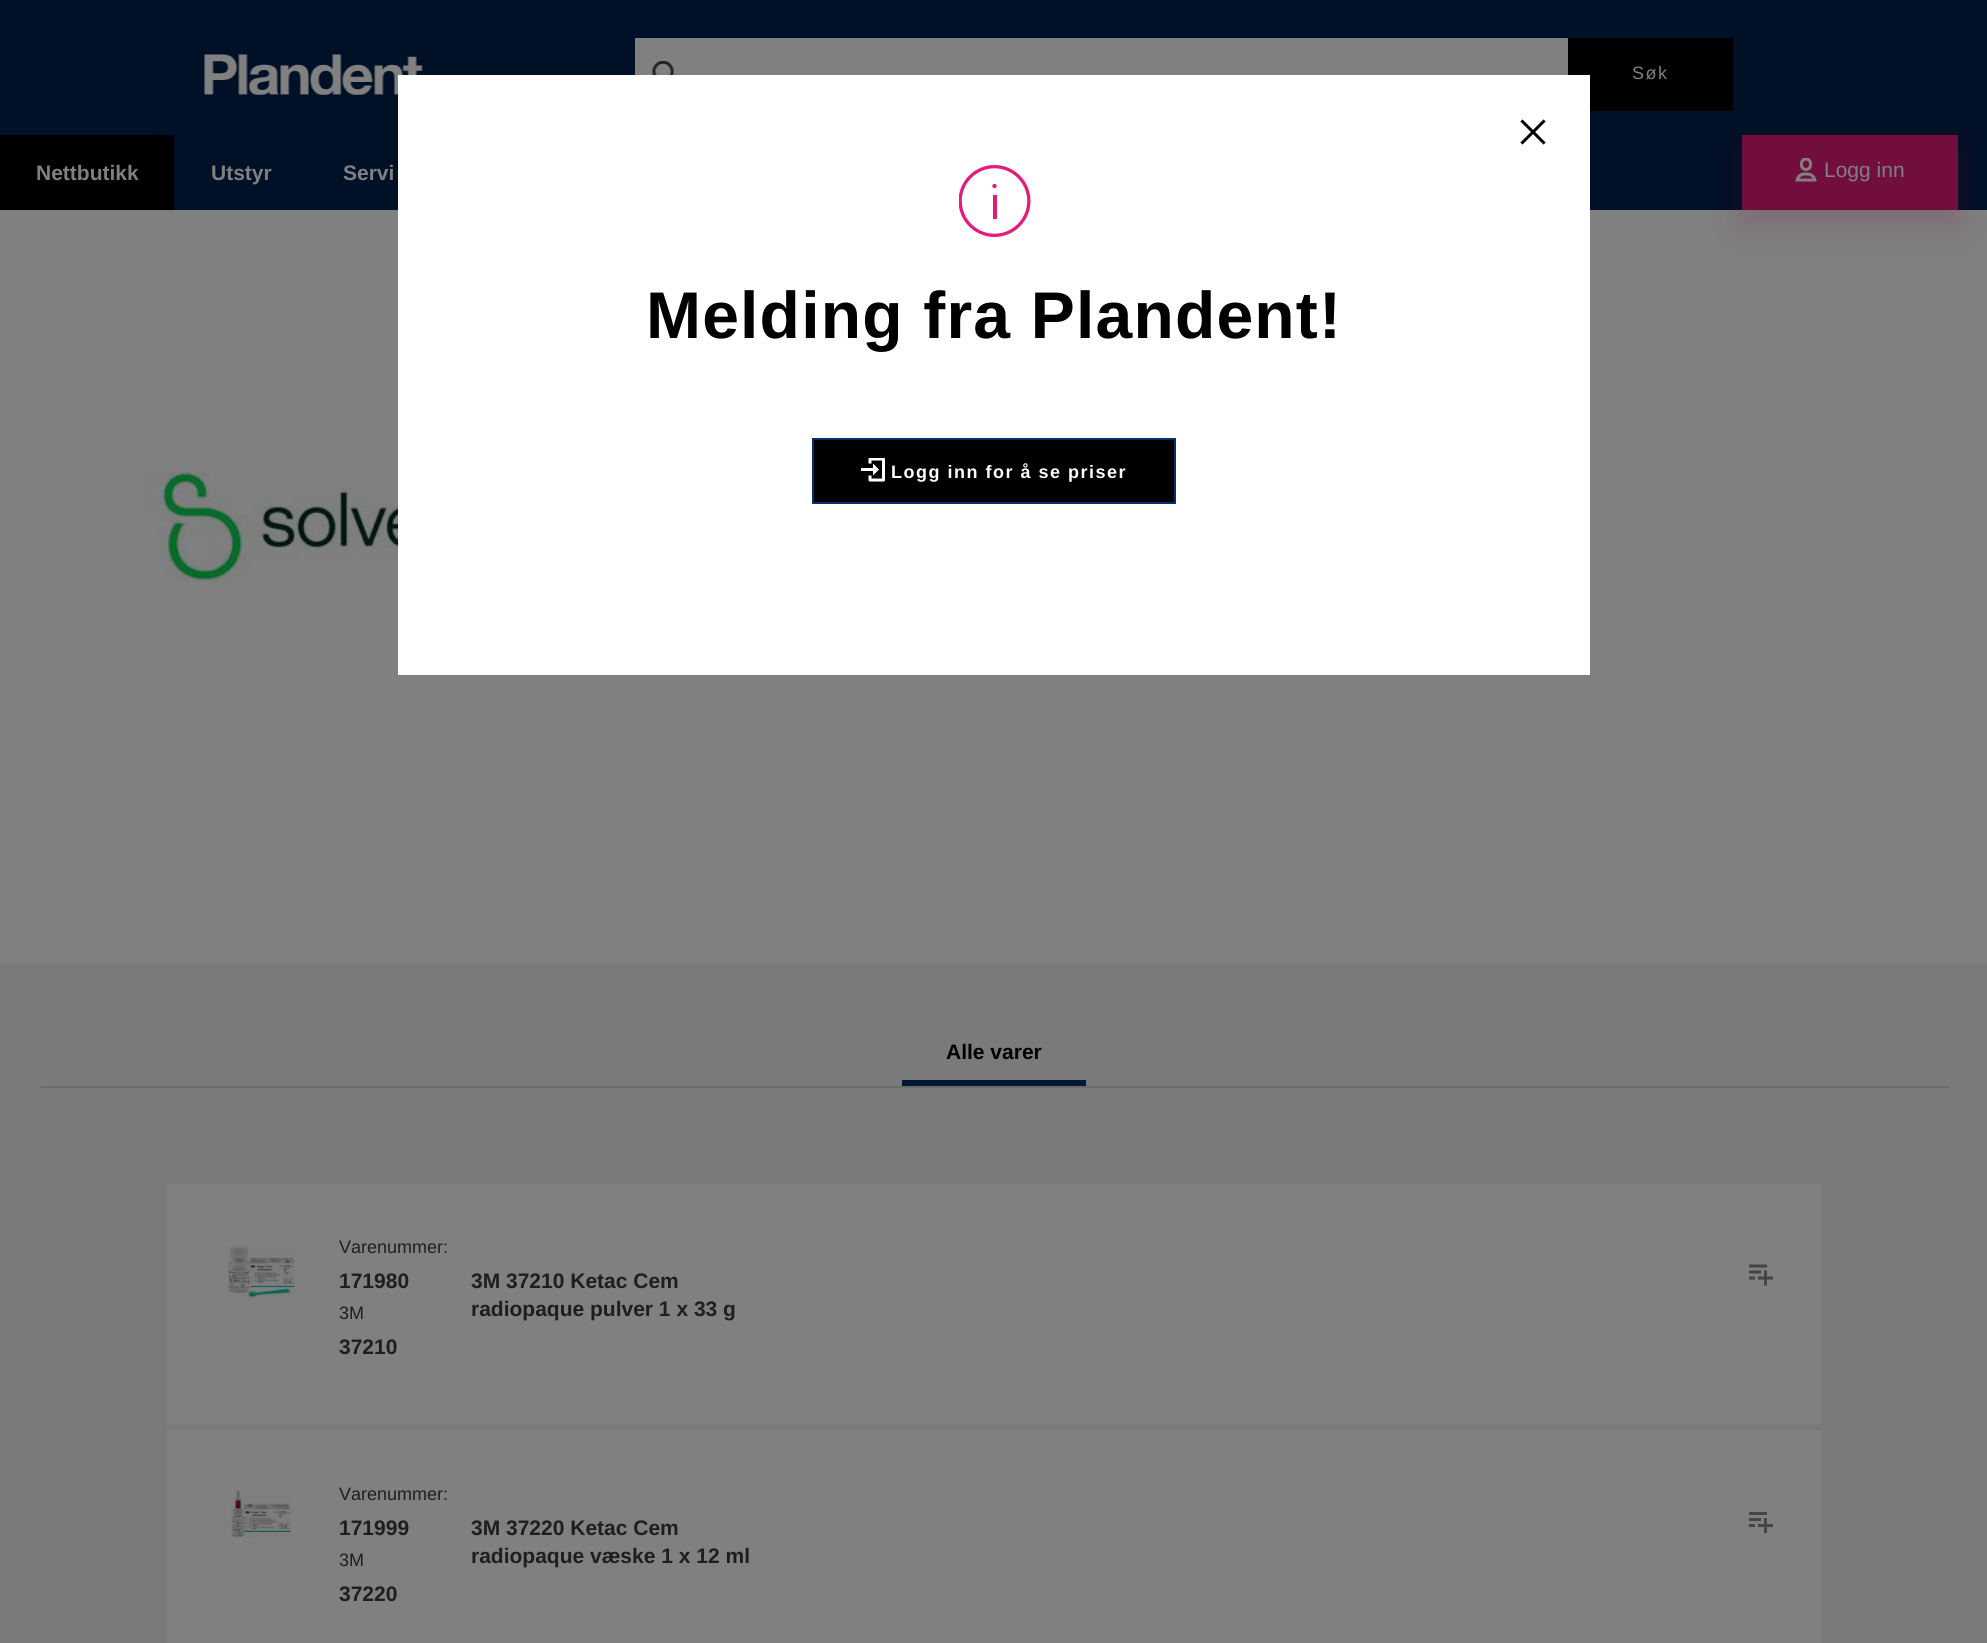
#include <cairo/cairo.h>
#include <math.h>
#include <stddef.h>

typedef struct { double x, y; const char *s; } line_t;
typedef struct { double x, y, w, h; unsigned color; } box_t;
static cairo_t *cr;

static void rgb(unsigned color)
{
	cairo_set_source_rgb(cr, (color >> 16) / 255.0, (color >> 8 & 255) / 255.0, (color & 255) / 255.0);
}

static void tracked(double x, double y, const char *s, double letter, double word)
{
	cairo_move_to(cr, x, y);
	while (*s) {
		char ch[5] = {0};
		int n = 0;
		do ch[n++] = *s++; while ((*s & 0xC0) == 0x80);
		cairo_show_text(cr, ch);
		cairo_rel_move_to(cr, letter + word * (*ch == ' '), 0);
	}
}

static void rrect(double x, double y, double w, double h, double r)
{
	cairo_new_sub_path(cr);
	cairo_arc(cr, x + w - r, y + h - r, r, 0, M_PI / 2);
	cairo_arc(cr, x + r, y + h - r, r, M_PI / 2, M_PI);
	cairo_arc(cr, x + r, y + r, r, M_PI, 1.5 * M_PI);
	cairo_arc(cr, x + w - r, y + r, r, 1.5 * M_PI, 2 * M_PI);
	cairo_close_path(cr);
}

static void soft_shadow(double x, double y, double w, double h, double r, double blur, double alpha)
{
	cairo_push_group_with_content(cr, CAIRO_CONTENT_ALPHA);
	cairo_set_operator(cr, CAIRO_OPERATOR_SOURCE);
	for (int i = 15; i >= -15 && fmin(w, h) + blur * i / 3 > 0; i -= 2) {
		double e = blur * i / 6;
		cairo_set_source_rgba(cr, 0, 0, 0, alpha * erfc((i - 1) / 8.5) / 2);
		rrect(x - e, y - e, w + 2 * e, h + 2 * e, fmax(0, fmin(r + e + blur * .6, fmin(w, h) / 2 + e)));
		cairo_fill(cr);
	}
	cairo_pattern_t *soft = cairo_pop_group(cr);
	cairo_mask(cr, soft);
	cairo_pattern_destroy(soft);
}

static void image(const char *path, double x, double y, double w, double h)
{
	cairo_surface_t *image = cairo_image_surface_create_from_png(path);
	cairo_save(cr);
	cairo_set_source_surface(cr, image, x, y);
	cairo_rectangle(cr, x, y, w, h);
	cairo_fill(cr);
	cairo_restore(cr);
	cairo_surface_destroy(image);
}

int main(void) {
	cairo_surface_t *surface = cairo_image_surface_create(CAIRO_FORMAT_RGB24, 1987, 1643);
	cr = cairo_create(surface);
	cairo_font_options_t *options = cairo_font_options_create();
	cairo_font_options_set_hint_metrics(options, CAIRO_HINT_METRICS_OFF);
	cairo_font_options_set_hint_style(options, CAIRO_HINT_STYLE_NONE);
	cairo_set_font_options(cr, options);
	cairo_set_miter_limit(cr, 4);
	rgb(0x808080);
	cairo_paint(cr);
	rgb(0x001026);
	cairo_rectangle(cr, 0, 0, 1987, 210);
	cairo_fill(cr);
	image("img/1.png", 204, 54, 219, 41);
	rgb(0x808080);
	cairo_rectangle(cr, 635, 38, 933, 37);
	cairo_fill(cr);
	image("img/2.png", 652, 61, 23, 14);
	rgb(0x000000);
	cairo_rectangle(cr, 1568, 38, 165, 73);
	cairo_fill(cr);
	cairo_rectangle(cr, 0, 135, 174, 75);
	cairo_fill(cr);
	rgb(0x720e3d);
	soft_shadow(1742, 150, 216, 75, 0, 15, 0.2);
	rgb(0x720e3d);
	cairo_rectangle(cr, 1742, 135, 216, 75);
	cairo_fill(cr);
	image("img/3.png", 1795, 158, 22, 24);
	rgb(0xffffff);
	cairo_rectangle(cr, 398, 75, 1192, 600);
	cairo_fill(cr);
	image("img/4.png", 1520, 119, 26, 26);
	image("img/5.png", 959, 165, 72, 72);
	rgb(0x000000);
	cairo_rectangle(cr, 813, 439, 362, 64);
	cairo_fill_preserve(cr);
	rgb(0x002f6c);
	cairo_stroke(cr);
	image("img/6.png", 861, 458, 24, 24);
	image("img/7.png", 144, 471, 254, 112);
	{
		static const box_t items[] = {
			{0, 963, 1987, 680, 0x7a7a7c},
			{41, 1086, 1908, 2, 0x6c6c6c},
			{902, 1080, 184, 6, 0x001836},
			{167, 1184, 1654, 240, 0x808080},
		};
		for (size_t i = 0; i < sizeof items / sizeof *items; i++) {
			rgb(items[i].color);
			cairo_rectangle(cr, items[i].x, items[i].y, items[i].w, items[i].h);
			cairo_fill(cr);
		}
	}
	image("img/8.png", 227, 1245, 72, 54);
	image("img/9.png", 1749, 1264, 24, 22);
	cairo_rectangle(cr, 167, 1430, 1654, 213);
	cairo_fill(cr);
	image("img/10.png", 231, 1490, 60, 48);
	image("img/11.png", 1749, 1512, 24, 21);
	cairo_select_font_face(cr, "Liberation Sans", CAIRO_FONT_SLANT_NORMAL, CAIRO_FONT_WEIGHT_NORMAL);
	cairo_set_font_size(cr, 18);
	tracked(1632, 79, "Søk", 1.5, 0);
	cairo_select_font_face(cr, "Liberation Sans", CAIRO_FONT_SLANT_NORMAL, CAIRO_FONT_WEIGHT_BOLD);
	cairo_set_font_size(cr, 21);
	{
		static const line_t items[] = {
			{36, 180, "Nettbutikk"},
			{211, 180, "Utstyr"},
			{343, 180, "Servi"},
		};
		for (size_t i = 0; i < sizeof items / sizeof *items; i++) {
			cairo_move_to(cr, items[i].x, items[i].y);
			cairo_show_text(cr, items[i].s);
		}
	}
	cairo_select_font_face(cr, "Liberation Sans", CAIRO_FONT_SLANT_NORMAL, CAIRO_FONT_WEIGHT_NORMAL);
	cairo_move_to(cr, 1824, 177);
	cairo_show_text(cr, "Logg inn");
	cairo_select_font_face(cr, "Liberation Sans", CAIRO_FONT_SLANT_NORMAL, CAIRO_FONT_WEIGHT_BOLD);
	cairo_set_font_size(cr, 66);
	rgb(0x000000);
	tracked(646, 338, "Melding fra Plandent!", 1.2, 0);
	cairo_set_font_size(cr, 18);
	rgb(0xffffff);
	tracked(891, 478, "Logg inn for å se priser", 1.5, 0);
	cairo_set_font_size(cr, 21);
	rgb(0x000000);
	cairo_move_to(cr, 946, 1059);
	cairo_show_text(cr, "Alle varer");
	cairo_select_font_face(cr, "Liberation Sans", CAIRO_FONT_SLANT_NORMAL, CAIRO_FONT_WEIGHT_NORMAL);
	cairo_set_font_size(cr, 18);
	rgb(0x1e1e1e);
	cairo_move_to(cr, 339, 1253);
	cairo_show_text(cr, "Varenummer:");
	cairo_select_font_face(cr, "Liberation Sans", CAIRO_FONT_SLANT_NORMAL, CAIRO_FONT_WEIGHT_BOLD);
	cairo_set_font_size(cr, 21);
	cairo_move_to(cr, 339, 1288);
	cairo_show_text(cr, "171980");
	cairo_select_font_face(cr, "Liberation Sans", CAIRO_FONT_SLANT_NORMAL, CAIRO_FONT_WEIGHT_NORMAL);
	cairo_set_font_size(cr, 18);
	cairo_move_to(cr, 339, 1319);
	cairo_show_text(cr, "3M");
	cairo_select_font_face(cr, "Liberation Sans", CAIRO_FONT_SLANT_NORMAL, CAIRO_FONT_WEIGHT_BOLD);
	cairo_set_font_size(cr, 21);
	{
		static const line_t items[] = {
			{339, 1354, "37210"},
			{471, 1288, "3M 37210 Ketac Cem"},
			{471, 1316, "radiopaque pulver 1 x 33 g"},
		};
		for (size_t i = 0; i < sizeof items / sizeof *items; i++) {
			cairo_move_to(cr, items[i].x, items[i].y);
			cairo_show_text(cr, items[i].s);
		}
	}
	cairo_select_font_face(cr, "Liberation Sans", CAIRO_FONT_SLANT_NORMAL, CAIRO_FONT_WEIGHT_NORMAL);
	cairo_set_font_size(cr, 18);
	cairo_move_to(cr, 339, 1500);
	cairo_show_text(cr, "Varenummer:");
	cairo_select_font_face(cr, "Liberation Sans", CAIRO_FONT_SLANT_NORMAL, CAIRO_FONT_WEIGHT_BOLD);
	cairo_set_font_size(cr, 21);
	cairo_move_to(cr, 339, 1535);
	cairo_show_text(cr, "171999");
	cairo_select_font_face(cr, "Liberation Sans", CAIRO_FONT_SLANT_NORMAL, CAIRO_FONT_WEIGHT_NORMAL);
	cairo_set_font_size(cr, 18);
	cairo_move_to(cr, 339, 1566);
	cairo_show_text(cr, "3M");
	cairo_select_font_face(cr, "Liberation Sans", CAIRO_FONT_SLANT_NORMAL, CAIRO_FONT_WEIGHT_BOLD);
	cairo_set_font_size(cr, 21);
	{
		static const line_t items[] = {
			{339, 1601, "37220"},
			{471, 1535, "3M 37220 Ketac Cem"},
			{471, 1563, "radiopaque væske 1 x 12 ml"},
		};
		for (size_t i = 0; i < sizeof items / sizeof *items; i++) {
			cairo_move_to(cr, items[i].x, items[i].y);
			cairo_show_text(cr, items[i].s);
		}
	}
	cairo_surface_write_to_png(surface, "page.png");
	cairo_font_options_destroy(options);
	cairo_destroy(cr);
	cairo_surface_destroy(surface);
	return 0;
}
